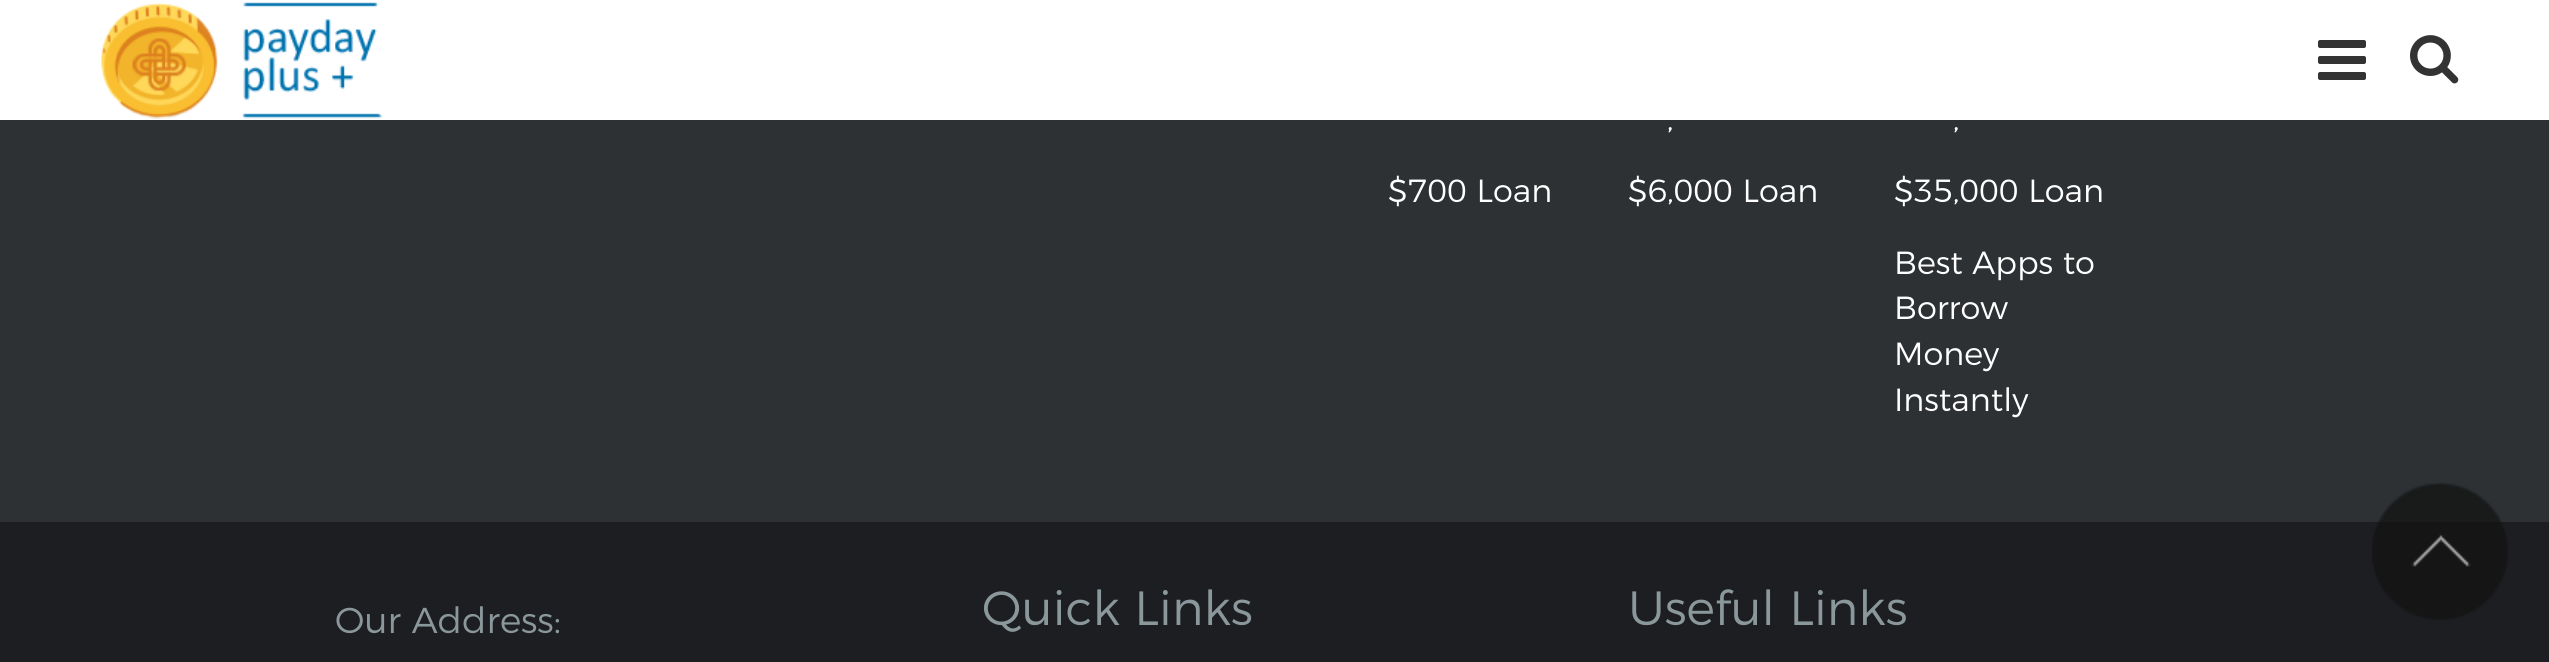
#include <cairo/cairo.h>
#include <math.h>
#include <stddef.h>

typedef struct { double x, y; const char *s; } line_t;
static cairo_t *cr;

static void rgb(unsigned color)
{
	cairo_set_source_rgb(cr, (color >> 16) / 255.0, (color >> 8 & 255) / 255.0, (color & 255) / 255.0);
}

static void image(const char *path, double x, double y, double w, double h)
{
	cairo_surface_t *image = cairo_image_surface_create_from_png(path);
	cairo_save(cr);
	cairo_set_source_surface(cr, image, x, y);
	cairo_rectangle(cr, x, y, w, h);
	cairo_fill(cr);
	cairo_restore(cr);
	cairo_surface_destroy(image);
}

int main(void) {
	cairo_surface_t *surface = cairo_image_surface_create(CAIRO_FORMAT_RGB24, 2549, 662);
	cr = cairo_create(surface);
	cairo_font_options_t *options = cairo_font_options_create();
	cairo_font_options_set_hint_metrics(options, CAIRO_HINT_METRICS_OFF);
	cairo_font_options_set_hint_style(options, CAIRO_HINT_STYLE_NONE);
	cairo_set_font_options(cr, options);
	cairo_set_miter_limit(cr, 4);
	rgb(0x1d1e21);
	cairo_paint(cr);
	rgb(0xffffff);
	cairo_rectangle(cr, 0, 0, 2549, 120);
	cairo_fill(cr);
	image("img/1.png", 101, 2, 282, 118);
	image("img/2.png", 2318, 40, 48, 40);
	image("img/3.png", 2410, 35, 49, 49);
	rgb(0x2d3134);
	cairo_rectangle(cr, 0, 120, 2549, 402);
	cairo_fill(cr);
	image("img/4.png", 2372, 482, 136, 138);
	cairo_select_font_face(cr, "Montserrat Light", CAIRO_FONT_SLANT_NORMAL, CAIRO_FONT_WEIGHT_NORMAL);
	cairo_set_font_size(cr, 32);
	rgb(0xffffff);
	{
		static const line_t items[] = {
			{1388, 202, "$700 Loan"},
			{1667, 130, ","},
			{1628, 202, "$6,000 Loan"},
			{1953, 130, ","},
			{1894, 202, "$35,000 Loan"},
			{1894, 274, "Best Apps to"},
			{1894, 319, "Borrow"},
			{1894, 365, "Money"},
			{1894, 411, "Instantly"},
		};
		for (size_t i = 0; i < sizeof items / sizeof *items; i++) {
			cairo_move_to(cr, items[i].x, items[i].y);
			cairo_show_text(cr, items[i].s);
		}
	}
	cairo_set_font_size(cr, 36);
	rgb(0x8a979b);
	cairo_move_to(cr, 335, 633);
	cairo_show_text(cr, "Our Address:");
	cairo_set_font_size(cr, 48);
	cairo_move_to(cr, 982, 625);
	cairo_show_text(cr, "Quick Links");
	cairo_move_to(cr, 1628, 625);
	cairo_show_text(cr, "Useful Links");
	cairo_surface_write_to_png(surface, "page.png");
	cairo_font_options_destroy(options);
	cairo_destroy(cr);
	cairo_surface_destroy(surface);
	return 0;
}
